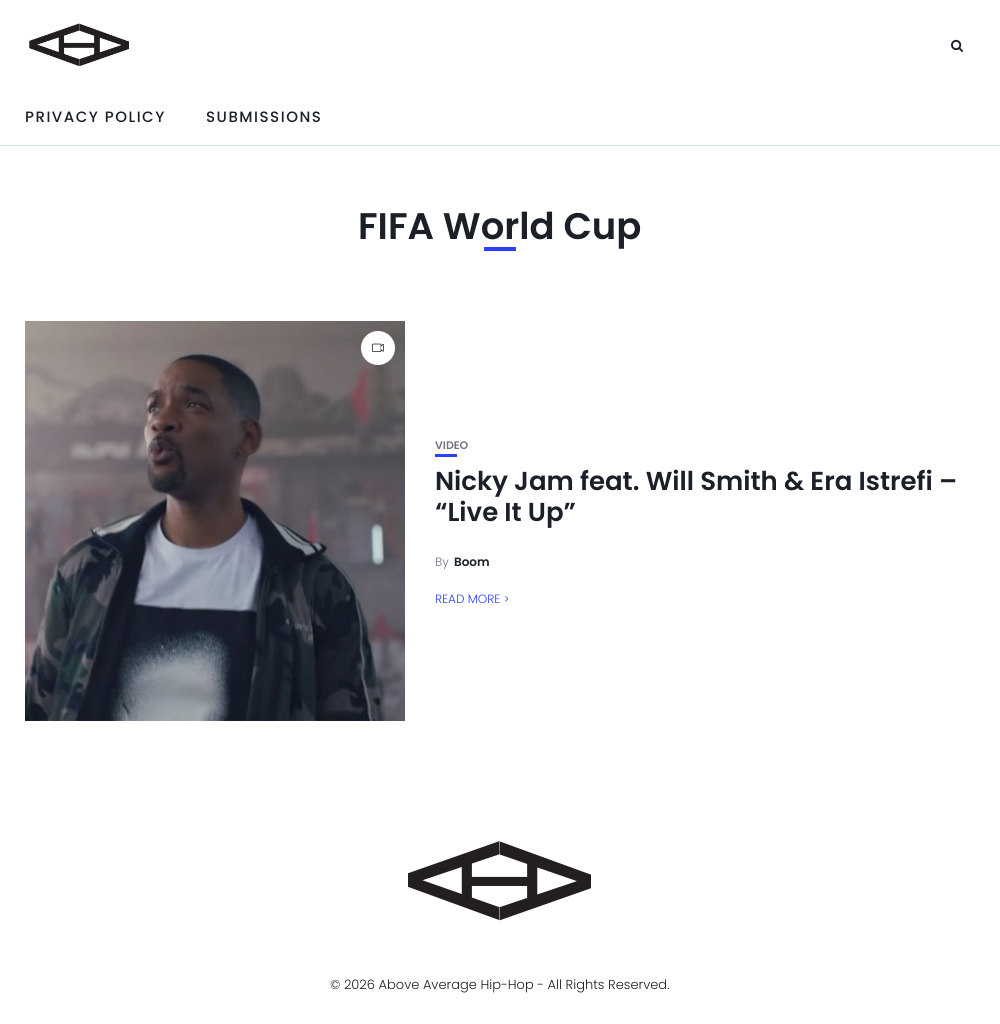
#include <cairo/cairo.h>
#include <math.h>
#include <stddef.h>

static cairo_t *cr;

static void rgb(unsigned color)
{
	cairo_set_source_rgb(cr, (color >> 16) / 255.0, (color >> 8 & 255) / 255.0, (color & 255) / 255.0);
}

static void tracked(double x, double y, const char *s, double letter, double word)
{
	cairo_move_to(cr, x, y);
	while (*s) {
		char ch[5] = {0};
		int n = 0;
		do ch[n++] = *s++; while ((*s & 0xC0) == 0x80);
		cairo_show_text(cr, ch);
		cairo_rel_move_to(cr, letter + word * (*ch == ' '), 0);
	}
}

static void image(const char *path, double x, double y, double w, double h)
{
	cairo_surface_t *image = cairo_image_surface_create_from_png(path);
	cairo_save(cr);
	cairo_set_source_surface(cr, image, x, y);
	cairo_rectangle(cr, x, y, w, h);
	cairo_fill(cr);
	cairo_restore(cr);
	cairo_surface_destroy(image);
}

int main(void) {
	cairo_surface_t *surface = cairo_image_surface_create(CAIRO_FORMAT_RGB24, 1000, 1024);
	cr = cairo_create(surface);
	cairo_font_options_t *options = cairo_font_options_create();
	cairo_font_options_set_hint_metrics(options, CAIRO_HINT_METRICS_OFF);
	cairo_font_options_set_hint_style(options, CAIRO_HINT_STYLE_NONE);
	cairo_set_font_options(cr, options);
	cairo_set_miter_limit(cr, 4);
	rgb(0xffffff);
	cairo_paint(cr);
	image("img/1.png", 29, 23, 100, 44);
	image("img/2.png", 951, 39, 12, 13);
	rgb(0xcfe0e9);
	cairo_rectangle(cr, 0, 145, 1000, 1);
	cairo_fill(cr);
	rgb(0x2c40ff);
	cairo_rectangle(cr, 484, 247, 32, 4);
	cairo_fill(cr);
	image("img/3.png", 25, 321, 380, 400);
	rgb(0xffffff);
	cairo_arc(cr, 378, 348, 17, 0, 2 * M_PI);
	cairo_fill(cr);
	image("img/4.png", 372, 343, 12, 9);
	rgb(0x2c40ff);
	cairo_rectangle(cr, 435, 454, 22, 3);
	cairo_fill(cr);
	image("img/5.png", 505, 596, 4, 6);
	image("img/6.png", 408, 841, 183, 80);
	cairo_select_font_face(cr, "Poppins Medium", CAIRO_FONT_SLANT_NORMAL, CAIRO_FONT_WEIGHT_NORMAL);
	cairo_set_font_size(cr, 15);
	rgb(0x1a1f28);
	tracked(25, 122, "PRIVACY POLICY", 1.5, 0);
	tracked(206, 122, "SUBMISSIONS", 1.5, 0);
	cairo_select_font_face(cr, "Poppins SemiBold", CAIRO_FONT_SLANT_NORMAL, CAIRO_FONT_WEIGHT_NORMAL);
	cairo_set_font_size(cr, 37);
	cairo_move_to(cr, 358, 239);
	cairo_show_text(cr, "FIFA World Cup");
	cairo_set_font_size(cr, 11);
	rgb(0x717582);
	cairo_move_to(cr, 435, 449);
	cairo_show_text(cr, "VIDEO");
	cairo_set_font_size(cr, 26);
	rgb(0x1a1f28);
	cairo_move_to(cr, 435, 490);
	cairo_show_text(cr, "Nicky Jam feat. Will Smith & Era Istrefi –");
	cairo_move_to(cr, 435, 521);
	cairo_show_text(cr, "“Live It Up”");
	cairo_select_font_face(cr, "Poppins Light", CAIRO_FONT_SLANT_NORMAL, CAIRO_FONT_WEIGHT_NORMAL);
	cairo_set_font_size(cr, 12);
	rgb(0x717582);
	cairo_move_to(cr, 435, 566);
	cairo_show_text(cr, "By");
	cairo_select_font_face(cr, "Poppins SemiBold", CAIRO_FONT_SLANT_NORMAL, CAIRO_FONT_WEIGHT_NORMAL);
	rgb(0x1a1f28);
	cairo_move_to(cr, 454, 566);
	cairo_show_text(cr, "Boom");
	cairo_select_font_face(cr, "Poppins Light", CAIRO_FONT_SLANT_NORMAL, CAIRO_FONT_WEIGHT_NORMAL);
	rgb(0x2c40ff);
	cairo_move_to(cr, 435, 603);
	cairo_show_text(cr, "READ MORE");
	cairo_set_font_size(cr, 13);
	rgb(0x1a1f28);
	cairo_move_to(cr, 330, 989);
	cairo_show_text(cr, "© 2026 Above Average Hip-Hop - All Rights Reserved.");
	cairo_surface_write_to_png(surface, "page.png");
	cairo_font_options_destroy(options);
	cairo_destroy(cr);
	cairo_surface_destroy(surface);
	return 0;
}
